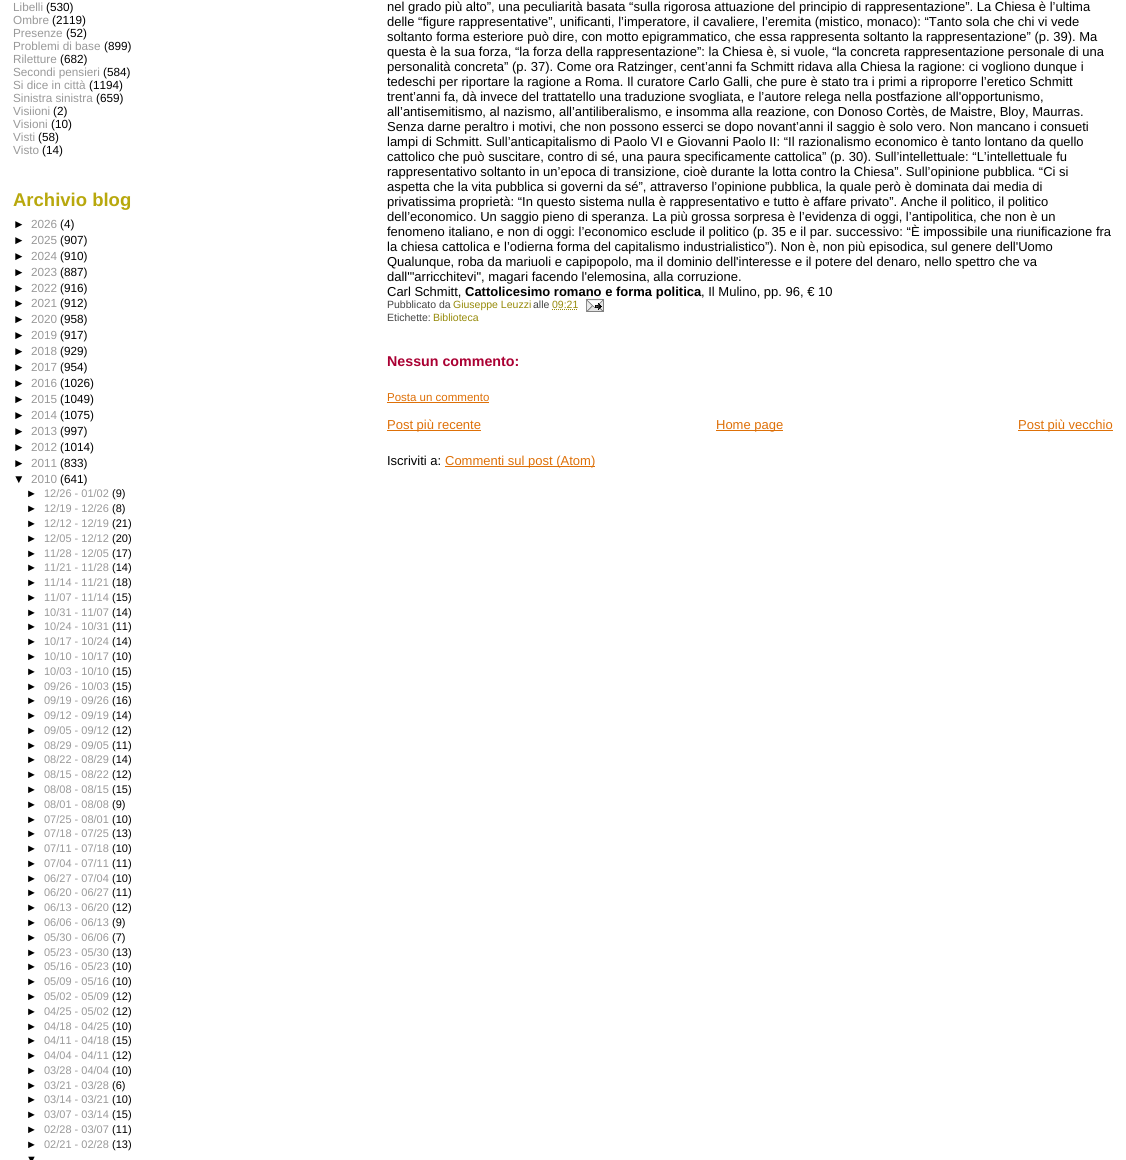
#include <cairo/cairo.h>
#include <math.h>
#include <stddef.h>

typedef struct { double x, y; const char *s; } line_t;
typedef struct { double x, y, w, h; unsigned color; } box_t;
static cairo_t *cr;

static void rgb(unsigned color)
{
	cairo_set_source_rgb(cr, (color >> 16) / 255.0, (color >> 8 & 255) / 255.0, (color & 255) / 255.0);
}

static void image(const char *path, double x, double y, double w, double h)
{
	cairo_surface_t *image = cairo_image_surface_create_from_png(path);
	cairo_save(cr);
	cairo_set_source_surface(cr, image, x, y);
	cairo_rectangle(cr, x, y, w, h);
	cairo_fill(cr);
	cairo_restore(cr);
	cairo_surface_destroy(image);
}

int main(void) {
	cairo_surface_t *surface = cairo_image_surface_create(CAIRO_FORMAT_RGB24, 1126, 1160);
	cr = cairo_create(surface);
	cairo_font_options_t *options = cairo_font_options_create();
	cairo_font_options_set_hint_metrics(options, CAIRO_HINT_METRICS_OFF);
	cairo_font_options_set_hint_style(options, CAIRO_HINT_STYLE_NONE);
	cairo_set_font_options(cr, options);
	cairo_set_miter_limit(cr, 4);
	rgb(0xffffff);
	cairo_paint(cr);
	cairo_new_path(cr);
	cairo_move_to(cr, 552, 309.5);
	cairo_line_to(cr, 578, 309.5);
	rgb(0x968a0a);
	cairo_set_line_width(cr, 1);
	cairo_set_dash(cr, (double[]){1, 1}, 2, 0);
	cairo_stroke(cr);
	image("img/1.png", 586, 299, 18, 13);
	{
		static const box_t items[] = {
			{387, 402, 102, 1, 0xde7008},
			{387, 430, 94, 1, 0xde7008},
			{716, 430, 67, 1, 0xde7008},
			{1018, 430, 95, 1, 0xde7008},
			{445, 466, 150, 1, 0xde7008},
		};
		for (size_t i = 0; i < sizeof items / sizeof *items; i++) {
			rgb(items[i].color);
			cairo_rectangle(cr, items[i].x, items[i].y, items[i].w, items[i].h);
			cairo_fill(cr);
		}
	}
	cairo_select_font_face(cr, "Liberation Sans", CAIRO_FONT_SLANT_NORMAL, CAIRO_FONT_WEIGHT_NORMAL);
	cairo_set_font_size(cr, 11.75);
	rgb(0x999999);
	cairo_move_to(cr, 13, 11);
	cairo_show_text(cr, "Libelli");
	rgb(0x000000);
	cairo_move_to(cr, 46, 11);
	cairo_show_text(cr, "(530)");
	rgb(0x999999);
	cairo_move_to(cr, 13, 24);
	cairo_show_text(cr, "Ombre");
	rgb(0x000000);
	cairo_move_to(cr, 52, 24);
	cairo_show_text(cr, "(2119)");
	rgb(0x999999);
	cairo_move_to(cr, 13, 37);
	cairo_show_text(cr, "Presenze");
	rgb(0x000000);
	cairo_move_to(cr, 66, 37);
	cairo_show_text(cr, "(52)");
	rgb(0x999999);
	cairo_move_to(cr, 13, 50);
	cairo_show_text(cr, "Problemi di base");
	rgb(0x000000);
	cairo_move_to(cr, 104, 50);
	cairo_show_text(cr, "(899)");
	rgb(0x999999);
	cairo_move_to(cr, 13, 63);
	cairo_show_text(cr, "Riletture");
	rgb(0x000000);
	cairo_move_to(cr, 60, 63);
	cairo_show_text(cr, "(682)");
	rgb(0x999999);
	cairo_move_to(cr, 13, 76);
	cairo_show_text(cr, "Secondi pensieri");
	rgb(0x000000);
	cairo_move_to(cr, 103, 76);
	cairo_show_text(cr, "(584)");
	rgb(0x999999);
	cairo_move_to(cr, 13, 89);
	cairo_show_text(cr, "Si dice in città");
	rgb(0x000000);
	cairo_move_to(cr, 89, 89);
	cairo_show_text(cr, "(1194)");
	rgb(0x999999);
	cairo_move_to(cr, 13, 102);
	cairo_show_text(cr, "Sinistra sinistra");
	rgb(0x000000);
	cairo_move_to(cr, 96, 102);
	cairo_show_text(cr, "(659)");
	rgb(0x999999);
	cairo_move_to(cr, 13, 115);
	cairo_show_text(cr, "Visiioni");
	rgb(0x000000);
	cairo_move_to(cr, 53, 115);
	cairo_show_text(cr, "(2)");
	rgb(0x999999);
	cairo_move_to(cr, 13, 128);
	cairo_show_text(cr, "Visioni");
	rgb(0x000000);
	cairo_move_to(cr, 51, 128);
	cairo_show_text(cr, "(10)");
	rgb(0x999999);
	cairo_move_to(cr, 13, 141);
	cairo_show_text(cr, "Visti");
	rgb(0x000000);
	cairo_move_to(cr, 38, 141);
	cairo_show_text(cr, "(58)");
	rgb(0x999999);
	cairo_move_to(cr, 13, 154);
	cairo_show_text(cr, "Visto");
	rgb(0x000000);
	cairo_move_to(cr, 42, 154);
	cairo_show_text(cr, "(14)");
	cairo_select_font_face(cr, "Liberation Sans", CAIRO_FONT_SLANT_NORMAL, CAIRO_FONT_WEIGHT_BOLD);
	cairo_set_font_size(cr, 18.5);
	rgb(0xb8a80d);
	cairo_move_to(cr, 13, 206);
	cairo_show_text(cr, "Archivio blog");
	cairo_select_font_face(cr, "Liberation Sans", CAIRO_FONT_SLANT_NORMAL, CAIRO_FONT_WEIGHT_NORMAL);
	cairo_set_font_size(cr, 11.75);
	rgb(0x000000);
	cairo_move_to(cr, 13, 228);
	cairo_show_text(cr, "►");
	rgb(0x999999);
	cairo_move_to(cr, 31, 228);
	cairo_show_text(cr, "2026");
	rgb(0x000000);
	cairo_move_to(cr, 60, 228);
	cairo_show_text(cr, "(4)");
	cairo_move_to(cr, 13, 244);
	cairo_show_text(cr, "►");
	rgb(0x999999);
	cairo_move_to(cr, 31, 244);
	cairo_show_text(cr, "2025");
	rgb(0x000000);
	cairo_move_to(cr, 60, 244);
	cairo_show_text(cr, "(907)");
	cairo_move_to(cr, 13, 260);
	cairo_show_text(cr, "►");
	rgb(0x999999);
	cairo_move_to(cr, 31, 260);
	cairo_show_text(cr, "2024");
	rgb(0x000000);
	cairo_move_to(cr, 60, 260);
	cairo_show_text(cr, "(910)");
	cairo_move_to(cr, 13, 276);
	cairo_show_text(cr, "►");
	rgb(0x999999);
	cairo_move_to(cr, 31, 276);
	cairo_show_text(cr, "2023");
	rgb(0x000000);
	cairo_move_to(cr, 60, 276);
	cairo_show_text(cr, "(887)");
	cairo_move_to(cr, 13, 292);
	cairo_show_text(cr, "►");
	rgb(0x999999);
	cairo_move_to(cr, 31, 292);
	cairo_show_text(cr, "2022");
	rgb(0x000000);
	cairo_move_to(cr, 60, 292);
	cairo_show_text(cr, "(916)");
	cairo_move_to(cr, 13, 307);
	cairo_show_text(cr, "►");
	rgb(0x999999);
	cairo_move_to(cr, 31, 307);
	cairo_show_text(cr, "2021");
	rgb(0x000000);
	cairo_move_to(cr, 60, 307);
	cairo_show_text(cr, "(912)");
	cairo_move_to(cr, 13, 323);
	cairo_show_text(cr, "►");
	rgb(0x999999);
	cairo_move_to(cr, 31, 323);
	cairo_show_text(cr, "2020");
	rgb(0x000000);
	cairo_move_to(cr, 60, 323);
	cairo_show_text(cr, "(958)");
	cairo_move_to(cr, 13, 339);
	cairo_show_text(cr, "►");
	rgb(0x999999);
	cairo_move_to(cr, 31, 339);
	cairo_show_text(cr, "2019");
	rgb(0x000000);
	cairo_move_to(cr, 60, 339);
	cairo_show_text(cr, "(917)");
	cairo_move_to(cr, 13, 355);
	cairo_show_text(cr, "►");
	rgb(0x999999);
	cairo_move_to(cr, 31, 355);
	cairo_show_text(cr, "2018");
	rgb(0x000000);
	cairo_move_to(cr, 60, 355);
	cairo_show_text(cr, "(929)");
	cairo_move_to(cr, 13, 371);
	cairo_show_text(cr, "►");
	rgb(0x999999);
	cairo_move_to(cr, 31, 371);
	cairo_show_text(cr, "2017");
	rgb(0x000000);
	cairo_move_to(cr, 60, 371);
	cairo_show_text(cr, "(954)");
	cairo_move_to(cr, 13, 387);
	cairo_show_text(cr, "►");
	rgb(0x999999);
	cairo_move_to(cr, 31, 387);
	cairo_show_text(cr, "2016");
	rgb(0x000000);
	cairo_move_to(cr, 60, 387);
	cairo_show_text(cr, "(1026)");
	cairo_move_to(cr, 13, 403);
	cairo_show_text(cr, "►");
	rgb(0x999999);
	cairo_move_to(cr, 31, 403);
	cairo_show_text(cr, "2015");
	rgb(0x000000);
	cairo_move_to(cr, 60, 403);
	cairo_show_text(cr, "(1049)");
	cairo_move_to(cr, 13, 419);
	cairo_show_text(cr, "►");
	rgb(0x999999);
	cairo_move_to(cr, 31, 419);
	cairo_show_text(cr, "2014");
	rgb(0x000000);
	cairo_move_to(cr, 60, 419);
	cairo_show_text(cr, "(1075)");
	cairo_move_to(cr, 13, 435);
	cairo_show_text(cr, "►");
	rgb(0x999999);
	cairo_move_to(cr, 31, 435);
	cairo_show_text(cr, "2013");
	rgb(0x000000);
	cairo_move_to(cr, 60, 435);
	cairo_show_text(cr, "(997)");
	cairo_move_to(cr, 13, 451);
	cairo_show_text(cr, "►");
	rgb(0x999999);
	cairo_move_to(cr, 31, 451);
	cairo_show_text(cr, "2012");
	rgb(0x000000);
	cairo_move_to(cr, 60, 451);
	cairo_show_text(cr, "(1014)");
	cairo_move_to(cr, 13, 467);
	cairo_show_text(cr, "►");
	rgb(0x999999);
	cairo_move_to(cr, 31, 467);
	cairo_show_text(cr, "2011");
	rgb(0x000000);
	cairo_move_to(cr, 60, 467);
	cairo_show_text(cr, "(833)");
	cairo_move_to(cr, 13, 483);
	cairo_show_text(cr, "▼");
	rgb(0x999999);
	cairo_move_to(cr, 31, 483);
	cairo_show_text(cr, "2010");
	rgb(0x000000);
	cairo_move_to(cr, 60, 483);
	cairo_show_text(cr, "(641)");
	cairo_set_font_size(cr, 11);
	cairo_move_to(cr, 26, 497);
	cairo_show_text(cr, "►");
	rgb(0x999999);
	cairo_move_to(cr, 44, 497);
	cairo_show_text(cr, "12/26 - 01/02");
	rgb(0x000000);
	cairo_move_to(cr, 112, 497);
	cairo_show_text(cr, "(9)");
	cairo_move_to(cr, 26, 512);
	cairo_show_text(cr, "►");
	rgb(0x999999);
	cairo_move_to(cr, 44, 512);
	cairo_show_text(cr, "12/19 - 12/26");
	rgb(0x000000);
	cairo_move_to(cr, 112, 512);
	cairo_show_text(cr, "(8)");
	cairo_move_to(cr, 26, 527);
	cairo_show_text(cr, "►");
	rgb(0x999999);
	cairo_move_to(cr, 44, 527);
	cairo_show_text(cr, "12/12 - 12/19");
	rgb(0x000000);
	cairo_move_to(cr, 112, 527);
	cairo_show_text(cr, "(21)");
	cairo_move_to(cr, 26, 542);
	cairo_show_text(cr, "►");
	rgb(0x999999);
	cairo_move_to(cr, 44, 542);
	cairo_show_text(cr, "12/05 - 12/12");
	rgb(0x000000);
	cairo_move_to(cr, 112, 542);
	cairo_show_text(cr, "(20)");
	cairo_move_to(cr, 26, 557);
	cairo_show_text(cr, "►");
	rgb(0x999999);
	cairo_move_to(cr, 44, 557);
	cairo_show_text(cr, "11/28 - 12/05");
	rgb(0x000000);
	cairo_move_to(cr, 112, 557);
	cairo_show_text(cr, "(17)");
	cairo_move_to(cr, 26, 571);
	cairo_show_text(cr, "►");
	rgb(0x999999);
	cairo_move_to(cr, 44, 571);
	cairo_show_text(cr, "11/21 - 11/28");
	rgb(0x000000);
	cairo_move_to(cr, 112, 571);
	cairo_show_text(cr, "(14)");
	cairo_move_to(cr, 26, 586);
	cairo_show_text(cr, "►");
	rgb(0x999999);
	cairo_move_to(cr, 44, 586);
	cairo_show_text(cr, "11/14 - 11/21");
	rgb(0x000000);
	cairo_move_to(cr, 112, 586);
	cairo_show_text(cr, "(18)");
	cairo_move_to(cr, 26, 601);
	cairo_show_text(cr, "►");
	rgb(0x999999);
	cairo_move_to(cr, 44, 601);
	cairo_show_text(cr, "11/07 - 11/14");
	rgb(0x000000);
	cairo_move_to(cr, 112, 601);
	cairo_show_text(cr, "(15)");
	cairo_move_to(cr, 26, 616);
	cairo_show_text(cr, "►");
	rgb(0x999999);
	cairo_move_to(cr, 44, 616);
	cairo_show_text(cr, "10/31 - 11/07");
	rgb(0x000000);
	cairo_move_to(cr, 112, 616);
	cairo_show_text(cr, "(14)");
	cairo_move_to(cr, 26, 630);
	cairo_show_text(cr, "►");
	rgb(0x999999);
	cairo_move_to(cr, 44, 630);
	cairo_show_text(cr, "10/24 - 10/31");
	rgb(0x000000);
	cairo_move_to(cr, 112, 630);
	cairo_show_text(cr, "(11)");
	cairo_move_to(cr, 26, 645);
	cairo_show_text(cr, "►");
	rgb(0x999999);
	cairo_move_to(cr, 44, 645);
	cairo_show_text(cr, "10/17 - 10/24");
	rgb(0x000000);
	cairo_move_to(cr, 112, 645);
	cairo_show_text(cr, "(14)");
	cairo_move_to(cr, 26, 660);
	cairo_show_text(cr, "►");
	rgb(0x999999);
	cairo_move_to(cr, 44, 660);
	cairo_show_text(cr, "10/10 - 10/17");
	rgb(0x000000);
	cairo_move_to(cr, 112, 660);
	cairo_show_text(cr, "(10)");
	cairo_move_to(cr, 26, 675);
	cairo_show_text(cr, "►");
	rgb(0x999999);
	cairo_move_to(cr, 44, 675);
	cairo_show_text(cr, "10/03 - 10/10");
	rgb(0x000000);
	cairo_move_to(cr, 112, 675);
	cairo_show_text(cr, "(15)");
	cairo_move_to(cr, 26, 690);
	cairo_show_text(cr, "►");
	rgb(0x999999);
	cairo_move_to(cr, 44, 690);
	cairo_show_text(cr, "09/26 - 10/03");
	rgb(0x000000);
	cairo_move_to(cr, 112, 690);
	cairo_show_text(cr, "(15)");
	cairo_move_to(cr, 26, 704);
	cairo_show_text(cr, "►");
	rgb(0x999999);
	cairo_move_to(cr, 44, 704);
	cairo_show_text(cr, "09/19 - 09/26");
	rgb(0x000000);
	cairo_move_to(cr, 112, 704);
	cairo_show_text(cr, "(16)");
	cairo_move_to(cr, 26, 719);
	cairo_show_text(cr, "►");
	rgb(0x999999);
	cairo_move_to(cr, 44, 719);
	cairo_show_text(cr, "09/12 - 09/19");
	rgb(0x000000);
	cairo_move_to(cr, 112, 719);
	cairo_show_text(cr, "(14)");
	cairo_move_to(cr, 26, 734);
	cairo_show_text(cr, "►");
	rgb(0x999999);
	cairo_move_to(cr, 44, 734);
	cairo_show_text(cr, "09/05 - 09/12");
	rgb(0x000000);
	cairo_move_to(cr, 112, 734);
	cairo_show_text(cr, "(12)");
	cairo_move_to(cr, 26, 749);
	cairo_show_text(cr, "►");
	rgb(0x999999);
	cairo_move_to(cr, 44, 749);
	cairo_show_text(cr, "08/29 - 09/05");
	rgb(0x000000);
	cairo_move_to(cr, 112, 749);
	cairo_show_text(cr, "(11)");
	cairo_move_to(cr, 26, 763);
	cairo_show_text(cr, "►");
	rgb(0x999999);
	cairo_move_to(cr, 44, 763);
	cairo_show_text(cr, "08/22 - 08/29");
	rgb(0x000000);
	cairo_move_to(cr, 112, 763);
	cairo_show_text(cr, "(14)");
	cairo_move_to(cr, 26, 778);
	cairo_show_text(cr, "►");
	rgb(0x999999);
	cairo_move_to(cr, 44, 778);
	cairo_show_text(cr, "08/15 - 08/22");
	rgb(0x000000);
	cairo_move_to(cr, 112, 778);
	cairo_show_text(cr, "(12)");
	cairo_move_to(cr, 26, 793);
	cairo_show_text(cr, "►");
	rgb(0x999999);
	cairo_move_to(cr, 44, 793);
	cairo_show_text(cr, "08/08 - 08/15");
	rgb(0x000000);
	cairo_move_to(cr, 112, 793);
	cairo_show_text(cr, "(15)");
	cairo_move_to(cr, 26, 808);
	cairo_show_text(cr, "►");
	rgb(0x999999);
	cairo_move_to(cr, 44, 808);
	cairo_show_text(cr, "08/01 - 08/08");
	rgb(0x000000);
	cairo_move_to(cr, 112, 808);
	cairo_show_text(cr, "(9)");
	cairo_move_to(cr, 26, 823);
	cairo_show_text(cr, "►");
	rgb(0x999999);
	cairo_move_to(cr, 44, 823);
	cairo_show_text(cr, "07/25 - 08/01");
	rgb(0x000000);
	cairo_move_to(cr, 112, 823);
	cairo_show_text(cr, "(10)");
	cairo_move_to(cr, 26, 837);
	cairo_show_text(cr, "►");
	rgb(0x999999);
	cairo_move_to(cr, 44, 837);
	cairo_show_text(cr, "07/18 - 07/25");
	rgb(0x000000);
	cairo_move_to(cr, 112, 837);
	cairo_show_text(cr, "(13)");
	cairo_move_to(cr, 26, 852);
	cairo_show_text(cr, "►");
	rgb(0x999999);
	cairo_move_to(cr, 44, 852);
	cairo_show_text(cr, "07/11 - 07/18");
	rgb(0x000000);
	cairo_move_to(cr, 112, 852);
	cairo_show_text(cr, "(10)");
	cairo_move_to(cr, 26, 867);
	cairo_show_text(cr, "►");
	rgb(0x999999);
	cairo_move_to(cr, 44, 867);
	cairo_show_text(cr, "07/04 - 07/11");
	rgb(0x000000);
	cairo_move_to(cr, 112, 867);
	cairo_show_text(cr, "(11)");
	cairo_move_to(cr, 26, 882);
	cairo_show_text(cr, "►");
	rgb(0x999999);
	cairo_move_to(cr, 44, 882);
	cairo_show_text(cr, "06/27 - 07/04");
	rgb(0x000000);
	cairo_move_to(cr, 112, 882);
	cairo_show_text(cr, "(10)");
	cairo_move_to(cr, 26, 896);
	cairo_show_text(cr, "►");
	rgb(0x999999);
	cairo_move_to(cr, 44, 896);
	cairo_show_text(cr, "06/20 - 06/27");
	rgb(0x000000);
	cairo_move_to(cr, 112, 896);
	cairo_show_text(cr, "(11)");
	cairo_move_to(cr, 26, 911);
	cairo_show_text(cr, "►");
	rgb(0x999999);
	cairo_move_to(cr, 44, 911);
	cairo_show_text(cr, "06/13 - 06/20");
	rgb(0x000000);
	cairo_move_to(cr, 112, 911);
	cairo_show_text(cr, "(12)");
	cairo_move_to(cr, 26, 926);
	cairo_show_text(cr, "►");
	rgb(0x999999);
	cairo_move_to(cr, 44, 926);
	cairo_show_text(cr, "06/06 - 06/13");
	rgb(0x000000);
	cairo_move_to(cr, 112, 926);
	cairo_show_text(cr, "(9)");
	cairo_move_to(cr, 26, 941);
	cairo_show_text(cr, "►");
	rgb(0x999999);
	cairo_move_to(cr, 44, 941);
	cairo_show_text(cr, "05/30 - 06/06");
	rgb(0x000000);
	cairo_move_to(cr, 112, 941);
	cairo_show_text(cr, "(7)");
	cairo_move_to(cr, 26, 956);
	cairo_show_text(cr, "►");
	rgb(0x999999);
	cairo_move_to(cr, 44, 956);
	cairo_show_text(cr, "05/23 - 05/30");
	rgb(0x000000);
	cairo_move_to(cr, 112, 956);
	cairo_show_text(cr, "(13)");
	cairo_move_to(cr, 26, 970);
	cairo_show_text(cr, "►");
	rgb(0x999999);
	cairo_move_to(cr, 44, 970);
	cairo_show_text(cr, "05/16 - 05/23");
	rgb(0x000000);
	cairo_move_to(cr, 112, 970);
	cairo_show_text(cr, "(10)");
	cairo_move_to(cr, 26, 985);
	cairo_show_text(cr, "►");
	rgb(0x999999);
	cairo_move_to(cr, 44, 985);
	cairo_show_text(cr, "05/09 - 05/16");
	rgb(0x000000);
	cairo_move_to(cr, 112, 985);
	cairo_show_text(cr, "(10)");
	cairo_move_to(cr, 26, 1000);
	cairo_show_text(cr, "►");
	rgb(0x999999);
	cairo_move_to(cr, 44, 1000);
	cairo_show_text(cr, "05/02 - 05/09");
	rgb(0x000000);
	cairo_move_to(cr, 112, 1000);
	cairo_show_text(cr, "(12)");
	cairo_move_to(cr, 26, 1015);
	cairo_show_text(cr, "►");
	rgb(0x999999);
	cairo_move_to(cr, 44, 1015);
	cairo_show_text(cr, "04/25 - 05/02");
	rgb(0x000000);
	cairo_move_to(cr, 112, 1015);
	cairo_show_text(cr, "(12)");
	cairo_move_to(cr, 26, 1030);
	cairo_show_text(cr, "►");
	rgb(0x999999);
	cairo_move_to(cr, 44, 1030);
	cairo_show_text(cr, "04/18 - 04/25");
	rgb(0x000000);
	cairo_move_to(cr, 112, 1030);
	cairo_show_text(cr, "(10)");
	cairo_move_to(cr, 26, 1044);
	cairo_show_text(cr, "►");
	rgb(0x999999);
	cairo_move_to(cr, 44, 1044);
	cairo_show_text(cr, "04/11 - 04/18");
	rgb(0x000000);
	cairo_move_to(cr, 112, 1044);
	cairo_show_text(cr, "(15)");
	cairo_move_to(cr, 26, 1059);
	cairo_show_text(cr, "►");
	rgb(0x999999);
	cairo_move_to(cr, 44, 1059);
	cairo_show_text(cr, "04/04 - 04/11");
	rgb(0x000000);
	cairo_move_to(cr, 112, 1059);
	cairo_show_text(cr, "(12)");
	cairo_move_to(cr, 26, 1074);
	cairo_show_text(cr, "►");
	rgb(0x999999);
	cairo_move_to(cr, 44, 1074);
	cairo_show_text(cr, "03/28 - 04/04");
	rgb(0x000000);
	cairo_move_to(cr, 112, 1074);
	cairo_show_text(cr, "(10)");
	cairo_move_to(cr, 26, 1089);
	cairo_show_text(cr, "►");
	rgb(0x999999);
	cairo_move_to(cr, 44, 1089);
	cairo_show_text(cr, "03/21 - 03/28");
	rgb(0x000000);
	cairo_move_to(cr, 112, 1089);
	cairo_show_text(cr, "(6)");
	cairo_move_to(cr, 26, 1103);
	cairo_show_text(cr, "►");
	rgb(0x999999);
	cairo_move_to(cr, 44, 1103);
	cairo_show_text(cr, "03/14 - 03/21");
	rgb(0x000000);
	cairo_move_to(cr, 112, 1103);
	cairo_show_text(cr, "(10)");
	cairo_move_to(cr, 26, 1118);
	cairo_show_text(cr, "►");
	rgb(0x999999);
	cairo_move_to(cr, 44, 1118);
	cairo_show_text(cr, "03/07 - 03/14");
	rgb(0x000000);
	cairo_move_to(cr, 112, 1118);
	cairo_show_text(cr, "(15)");
	cairo_move_to(cr, 26, 1133);
	cairo_show_text(cr, "►");
	rgb(0x999999);
	cairo_move_to(cr, 44, 1133);
	cairo_show_text(cr, "02/28 - 03/07");
	rgb(0x000000);
	cairo_move_to(cr, 112, 1133);
	cairo_show_text(cr, "(11)");
	cairo_move_to(cr, 26, 1148);
	cairo_show_text(cr, "►");
	rgb(0x999999);
	cairo_move_to(cr, 44, 1148);
	cairo_show_text(cr, "02/21 - 02/28");
	rgb(0x000000);
	cairo_move_to(cr, 112, 1148);
	cairo_show_text(cr, "(13)");
	cairo_move_to(cr, 26, 1163);
	cairo_show_text(cr, "▼");
	cairo_set_font_size(cr, 13);
	{
		static const line_t items[] = {
			{387, 11, "nel grado più alto”, una peculiarità basata “sulla rigorosa attuazione del principio di rappresentazione”. La Chiesa è l’ultima"},
			{387, 26, "delle “figure rappresentative”, unificanti, l’imperatore, il cavaliere, l’eremita (mistico, monaco): “Tanto sola che chi vi vede"},
			{387, 41, "soltanto forma esteriore può dire, con motto epigrammatico, che essa rappresenta soltanto la rappresentazione” (p. 39). Ma"},
			{387, 56, "questa è la sua forza, “la forza della rappresentazione”: la Chiesa è, si vuole, “la concreta rappresentazione personale di una"},
			{387, 71, "personalità concreta” (p. 37). Come ora Ratzinger, cent’anni fa Schmitt ridava alla Chiesa la ragione: ci vogliono dunque i"},
			{387, 86, "tedeschi per riportare la ragione a Roma. Il curatore Carlo Galli, che pure è stato tra i primi a riproporre l’eretico Schmitt"},
			{387, 101, "trent’anni fa, dà invece del trattatello una traduzione svogliata, e l’autore relega nella postfazione all'opportunismo,"},
			{387, 116, "all’antisemitismo, al nazismo, all’antiliberalismo, e insomma alla reazione, con Donoso Cortès, de Maistre, Bloy, Maurras."},
			{387, 131, "Senza darne peraltro i motivi, che non possono esserci se dopo novant’anni il saggio è solo vero. Non mancano i consueti"},
			{387, 146, "lampi di Schmitt. Sull’anticapitalismo di Paolo VI e Giovanni Paolo II: “Il razionalismo economico è tanto lontano da quello"},
			{387, 161, "cattolico che può suscitare, contro di sé, una paura specificamente cattolica” (p. 30). Sull’intellettuale: “L’intellettuale fu"},
			{387, 176, "rappresentativo soltanto in un’epoca di transizione, cioè durante la lotta contro la Chiesa”. Sull’opinione pubblica. “Ci si"},
			{387, 191, "aspetta che la vita pubblica si governi da sé”, attraverso l’opinione pubblica, la quale però è dominata dai media di"},
			{387, 206, "privatissima proprietà: “In questo sistema nulla è rappresentativo e tutto è affare privato”. Anche il politico, il politico"},
			{387, 221, "dell’economico. Un saggio pieno di speranza. La più grossa sorpresa è l’evidenza di oggi, l’antipolitica, che non è un"},
			{387, 236, "fenomeno italiano, e non di oggi: l’economico esclude il politico (p. 35 e il par. successivo: “È impossibile una riunificazione fra"},
			{387, 251, "la chiesa cattolica e l’odierna forma del capitalismo industrialistico”). Non è, non più episodica, sul genere dell'Uomo"},
			{387, 266, "Qualunque, roba da mariuoli e capipopolo, ma il dominio dell'interesse e il potere del denaro, nello spettro che va"},
			{387, 281, "dall'\"arricchitevi\", magari facendo l'elemosina, alla corruzione."},
			{387, 296, "Carl Schmitt,"},
		};
		for (size_t i = 0; i < sizeof items / sizeof *items; i++) {
			cairo_move_to(cr, items[i].x, items[i].y);
			cairo_show_text(cr, items[i].s);
		}
	}
	cairo_select_font_face(cr, "Liberation Sans", CAIRO_FONT_SLANT_NORMAL, CAIRO_FONT_WEIGHT_BOLD);
	cairo_move_to(cr, 465, 296);
	cairo_show_text(cr, "Cattolicesimo romano e forma politica");
	cairo_select_font_face(cr, "Liberation Sans", CAIRO_FONT_SLANT_NORMAL, CAIRO_FONT_WEIGHT_NORMAL);
	cairo_move_to(cr, 701, 296);
	cairo_show_text(cr, ", Il Mulino, pp. 96, € 10");
	cairo_set_font_size(cr, 10.5);
	rgb(0x444444);
	cairo_move_to(cr, 387, 308);
	cairo_show_text(cr, "Pubblicato da");
	rgb(0x968a0a);
	cairo_move_to(cr, 453, 308);
	cairo_show_text(cr, "Giuseppe Leuzzi");
	rgb(0x444444);
	cairo_move_to(cr, 533, 308);
	cairo_show_text(cr, "alle");
	rgb(0x968a0a);
	cairo_move_to(cr, 552, 308);
	cairo_show_text(cr, "09:21");
	rgb(0x444444);
	cairo_move_to(cr, 387, 321);
	cairo_show_text(cr, "Etichette:");
	rgb(0x968a0a);
	cairo_move_to(cr, 433, 321);
	cairo_show_text(cr, "Biblioteca");
	cairo_select_font_face(cr, "Liberation Sans", CAIRO_FONT_SLANT_NORMAL, CAIRO_FONT_WEIGHT_BOLD);
	cairo_set_font_size(cr, 14.25);
	rgb(0xaa0033);
	cairo_move_to(cr, 387, 366);
	cairo_show_text(cr, "Nessun commento:");
	cairo_select_font_face(cr, "Liberation Sans", CAIRO_FONT_SLANT_NORMAL, CAIRO_FONT_WEIGHT_NORMAL);
	cairo_set_font_size(cr, 11.5);
	rgb(0xde7008);
	cairo_move_to(cr, 387, 401);
	cairo_show_text(cr, "Posta un commento");
	cairo_set_font_size(cr, 13);
	{
		static const line_t items[] = {
			{387, 429, "Post più recente"},
			{716, 429, "Home page"},
			{1018, 429, "Post più vecchio"},
		};
		for (size_t i = 0; i < sizeof items / sizeof *items; i++) {
			cairo_move_to(cr, items[i].x, items[i].y);
			cairo_show_text(cr, items[i].s);
		}
	}
	rgb(0x000000);
	cairo_move_to(cr, 387, 465);
	cairo_show_text(cr, "Iscriviti a:");
	rgb(0xde7008);
	cairo_move_to(cr, 445, 465);
	cairo_show_text(cr, "Commenti sul post (Atom)");
	cairo_surface_write_to_png(surface, "page.png");
	cairo_font_options_destroy(options);
	cairo_destroy(cr);
	cairo_surface_destroy(surface);
	return 0;
}
